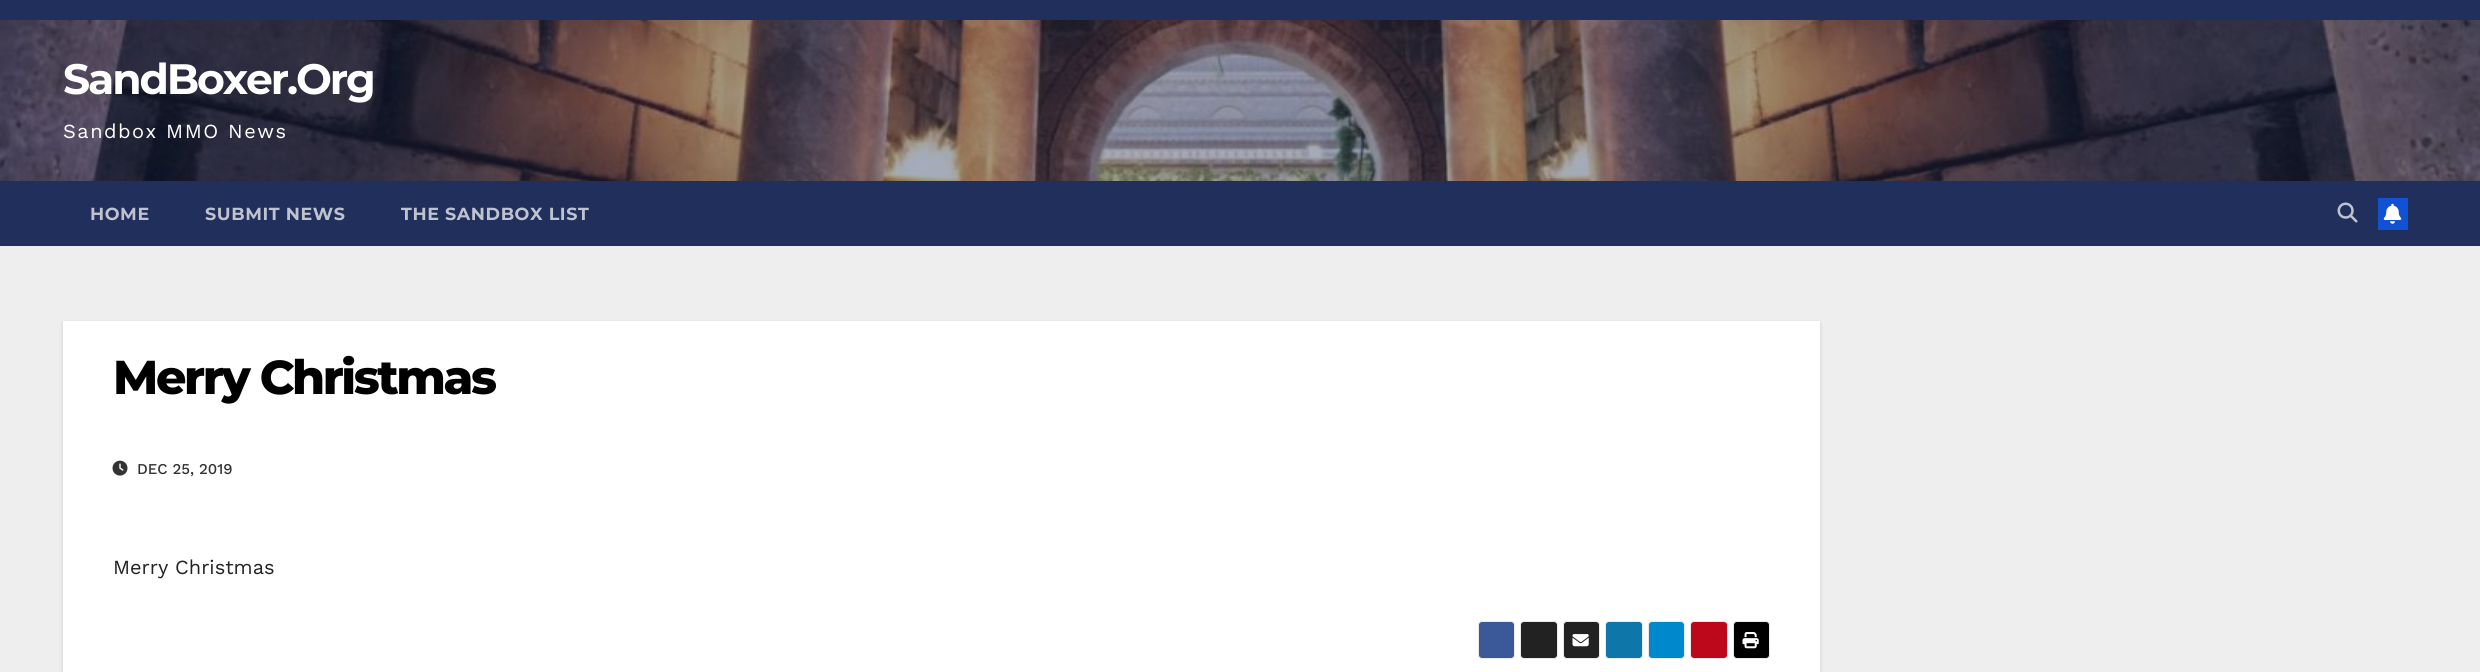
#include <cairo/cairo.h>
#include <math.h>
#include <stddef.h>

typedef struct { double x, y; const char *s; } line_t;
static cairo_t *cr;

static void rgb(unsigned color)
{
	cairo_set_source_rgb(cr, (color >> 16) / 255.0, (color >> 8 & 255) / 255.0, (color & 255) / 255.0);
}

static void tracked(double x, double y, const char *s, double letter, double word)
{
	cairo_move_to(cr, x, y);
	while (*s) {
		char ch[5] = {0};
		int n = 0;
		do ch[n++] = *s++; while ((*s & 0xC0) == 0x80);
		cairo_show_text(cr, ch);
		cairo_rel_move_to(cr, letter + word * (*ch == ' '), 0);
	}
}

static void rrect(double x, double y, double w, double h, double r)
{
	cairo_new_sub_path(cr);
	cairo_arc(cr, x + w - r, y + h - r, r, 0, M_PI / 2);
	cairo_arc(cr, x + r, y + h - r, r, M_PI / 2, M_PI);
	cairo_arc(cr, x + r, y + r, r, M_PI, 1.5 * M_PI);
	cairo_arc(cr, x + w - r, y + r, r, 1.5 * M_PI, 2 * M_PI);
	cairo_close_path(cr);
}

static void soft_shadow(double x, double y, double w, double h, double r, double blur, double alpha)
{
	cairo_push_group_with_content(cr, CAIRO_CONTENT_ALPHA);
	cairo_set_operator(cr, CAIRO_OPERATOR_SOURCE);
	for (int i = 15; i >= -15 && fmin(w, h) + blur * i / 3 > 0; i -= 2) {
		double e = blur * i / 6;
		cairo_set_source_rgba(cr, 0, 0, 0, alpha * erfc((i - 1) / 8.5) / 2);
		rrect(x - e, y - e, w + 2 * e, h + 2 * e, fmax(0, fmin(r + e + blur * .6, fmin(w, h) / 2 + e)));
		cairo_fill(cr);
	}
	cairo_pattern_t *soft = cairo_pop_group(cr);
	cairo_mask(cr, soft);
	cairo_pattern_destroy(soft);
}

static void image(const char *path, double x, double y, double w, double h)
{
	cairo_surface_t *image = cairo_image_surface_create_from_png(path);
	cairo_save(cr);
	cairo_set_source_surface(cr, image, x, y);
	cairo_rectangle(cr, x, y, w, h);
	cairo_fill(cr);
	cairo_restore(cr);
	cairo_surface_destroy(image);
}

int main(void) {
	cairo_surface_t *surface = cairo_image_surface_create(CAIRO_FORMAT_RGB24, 2480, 672);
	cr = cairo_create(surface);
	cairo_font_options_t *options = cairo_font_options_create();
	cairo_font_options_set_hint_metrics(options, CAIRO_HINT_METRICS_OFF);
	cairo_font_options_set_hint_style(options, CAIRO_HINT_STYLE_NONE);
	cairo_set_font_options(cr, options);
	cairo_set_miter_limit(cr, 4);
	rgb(0xeeeeee);
	cairo_paint(cr);
	rgb(0x202f5b);
	cairo_rectangle(cr, 0, 0, 2480, 20);
	cairo_fill(cr);
	image("img/1.png", 0, 20, 2480, 161);
	cairo_rectangle(cr, 0, 181, 2480, 65);
	cairo_fill(cr);
	image("img/2.png", 2337, 202, 21, 21);
	rgb(0x1151d3);
	cairo_rectangle(cr, 2378, 198, 30, 32);
	cairo_fill(cr);
	image("img/3.png", 2383, 203, 19, 21);
	rgb(0x000000);
	soft_shadow(63, 323, 1757, 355, 0, 2, 0.15);
	rgb(0xffffff);
	cairo_rectangle(cr, 63, 321, 1757, 351);
	cairo_fill(cr);
	image("img/4.png", 112, 460, 16, 16);
	rgb(0x3b5998);
	rrect(1478.5, 621.5, 36, 37, 3.5);
	cairo_fill_preserve(cr);
	rgb(0xebebeb);
	cairo_set_line_width(cr, 1);
	cairo_stroke(cr);
	rgb(0x222222);
	rrect(1520.5, 621.5, 37, 37, 3.5);
	cairo_fill_preserve(cr);
	rgb(0xebebeb);
	cairo_stroke(cr);
	rgb(0x222222);
	rrect(1563.5, 621.5, 36, 37, 3.5);
	cairo_fill_preserve(cr);
	rgb(0xebebeb);
	cairo_stroke(cr);
	image("img/5.png", 1572, 634, 17, 13);
	rgb(0x0e76a8);
	rrect(1605.5, 621.5, 37, 37, 3.5);
	cairo_fill_preserve(cr);
	rgb(0xebebeb);
	cairo_stroke(cr);
	rgb(0x0088cc);
	rrect(1648.5, 621.5, 36, 37, 3.5);
	cairo_fill_preserve(cr);
	rgb(0xebebeb);
	cairo_stroke(cr);
	rgb(0xbd081c);
	rrect(1690.5, 621.5, 37, 37, 3.5);
	cairo_fill_preserve(cr);
	rgb(0xebebeb);
	cairo_stroke(cr);
	rgb(0x000000);
	rrect(1733.5, 621.5, 36, 37, 3.5);
	cairo_fill_preserve(cr);
	rgb(0xebebeb);
	cairo_stroke(cr);
	image("img/6.png", 1742, 632, 17, 17);
	cairo_select_font_face(cr, "Montserrat", CAIRO_FONT_SLANT_NORMAL, CAIRO_FONT_WEIGHT_BOLD);
	cairo_set_font_size(cr, 42.5);
	rgb(0xffffff);
	tracked(63, 94, "SandBoxer.Org", -2.1, 0);
	cairo_select_font_face(cr, "Work Sans", CAIRO_FONT_SLANT_NORMAL, CAIRO_FONT_WEIGHT_NORMAL);
	cairo_set_font_size(cr, 20);
	tracked(63, 138, "Sandbox MMO News", 1.5, 0);
	cairo_select_font_face(cr, "Montserrat", CAIRO_FONT_SLANT_NORMAL, CAIRO_FONT_WEIGHT_BOLD);
	cairo_set_font_size(cr, 17.5);
	rgb(0xbec3cf);
	{
		static const line_t items[] = {
			{90, 220, "HOME"},
			{205, 220, "SUBMIT NEWS"},
			{401, 220, "THE SANDBOX LIST"},
		};
		for (size_t i = 0; i < sizeof items / sizeof *items; i++) {
			tracked(items[i].x, items[i].y, items[i].s, 0.6, 0);
		}
	}
	cairo_select_font_face(cr, "Montserrat ExtraBold", CAIRO_FONT_SLANT_NORMAL, CAIRO_FONT_WEIGHT_NORMAL);
	cairo_set_font_size(cr, 47.5);
	rgb(0x000000);
	tracked(113, 394, "Merry Christmas", -2.4, 0);
	cairo_select_font_face(cr, "Work Sans Medium", CAIRO_FONT_SLANT_NORMAL, CAIRO_FONT_WEIGHT_NORMAL);
	cairo_set_font_size(cr, 15);
	rgb(0x333333);
	cairo_move_to(cr, 137, 474);
	cairo_show_text(cr, "DEC 25, 2019");
	cairo_select_font_face(cr, "Work Sans", CAIRO_FONT_SLANT_NORMAL, CAIRO_FONT_WEIGHT_NORMAL);
	cairo_set_font_size(cr, 20);
	rgb(0x222222);
	cairo_move_to(cr, 113, 574);
	cairo_show_text(cr, "Merry Christmas");
	cairo_surface_write_to_png(surface, "page.png");
	cairo_font_options_destroy(options);
	cairo_destroy(cr);
	cairo_surface_destroy(surface);
	return 0;
}
